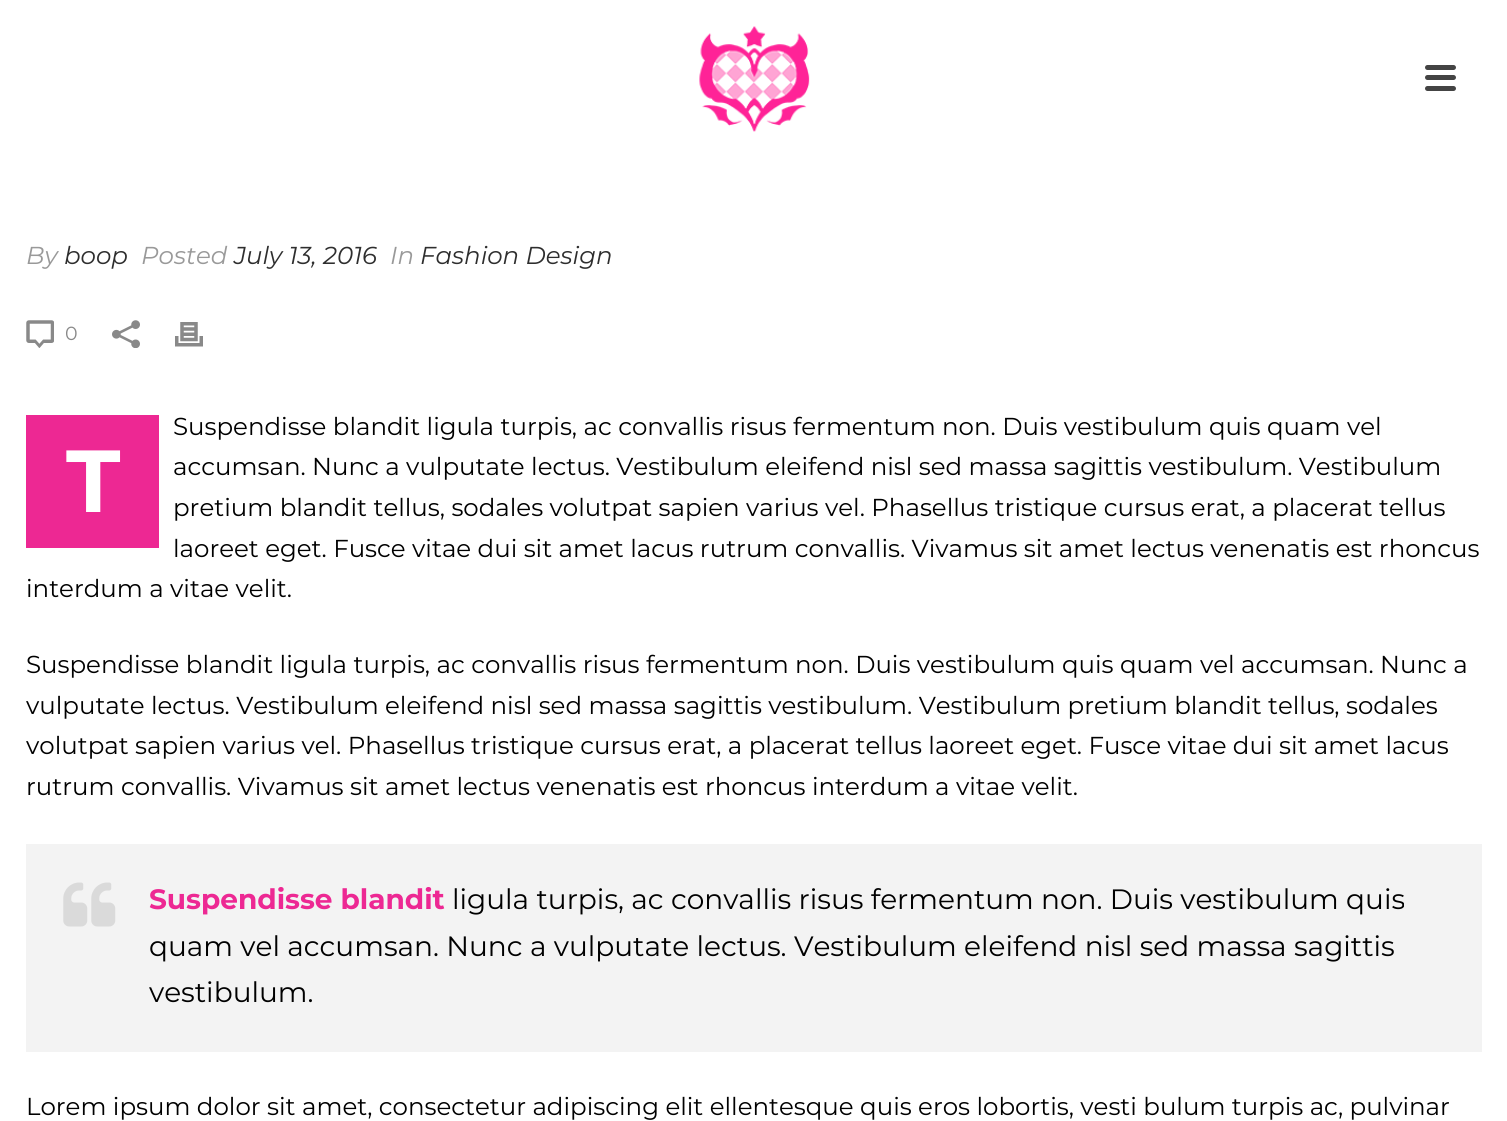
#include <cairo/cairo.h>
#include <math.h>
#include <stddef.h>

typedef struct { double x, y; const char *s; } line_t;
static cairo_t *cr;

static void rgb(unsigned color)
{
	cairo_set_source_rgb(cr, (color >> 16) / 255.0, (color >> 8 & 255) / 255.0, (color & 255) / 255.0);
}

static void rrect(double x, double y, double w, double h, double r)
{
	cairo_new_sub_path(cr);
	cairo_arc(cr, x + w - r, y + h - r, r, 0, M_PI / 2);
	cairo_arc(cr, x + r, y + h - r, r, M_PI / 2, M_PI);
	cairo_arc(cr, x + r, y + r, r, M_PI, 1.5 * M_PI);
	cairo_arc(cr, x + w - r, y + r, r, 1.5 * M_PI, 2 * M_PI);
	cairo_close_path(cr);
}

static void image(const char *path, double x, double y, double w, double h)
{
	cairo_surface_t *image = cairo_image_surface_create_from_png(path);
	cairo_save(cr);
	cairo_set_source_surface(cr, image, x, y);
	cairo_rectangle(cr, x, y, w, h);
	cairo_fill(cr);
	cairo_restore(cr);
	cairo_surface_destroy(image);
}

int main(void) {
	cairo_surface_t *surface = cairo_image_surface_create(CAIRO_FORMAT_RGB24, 1507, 1121);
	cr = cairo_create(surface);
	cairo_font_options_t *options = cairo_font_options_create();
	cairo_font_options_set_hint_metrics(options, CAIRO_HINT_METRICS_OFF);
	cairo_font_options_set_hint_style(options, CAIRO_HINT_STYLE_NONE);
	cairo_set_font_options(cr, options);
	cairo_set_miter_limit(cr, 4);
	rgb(0xffffff);
	cairo_paint(cr);
	image("img/1.png", 699, 26, 111, 106);
	rgb(0x444444);
	rrect(1425, 65, 31, 5, 2.5);
	cairo_fill(cr);
	rrect(1425, 75, 31, 5, 2.5);
	cairo_fill(cr);
	rrect(1425, 86, 31, 5, 2.5);
	cairo_fill(cr);
	image("img/2.png", 26, 320, 28, 28);
	image("img/3.png", 112, 320, 28, 28);
	image("img/4.png", 175, 322, 28, 25);
	rgb(0xed2893);
	cairo_rectangle(cr, 26, 415, 133, 133);
	cairo_fill(cr);
	rgb(0xf3f3f3);
	cairo_rectangle(cr, 26, 844, 1456, 208);
	cairo_fill(cr);
	image("img/5.png", 63, 882, 53, 45);
	cairo_select_font_face(cr, "Montserrat", CAIRO_FONT_SLANT_ITALIC, CAIRO_FONT_WEIGHT_NORMAL);
	cairo_set_font_size(cr, 24.5);
	rgb(0x999999);
	cairo_move_to(cr, 26, 264);
	cairo_show_text(cr, "By");
	rgb(0x2e2e2e);
	cairo_move_to(cr, 64, 264);
	cairo_show_text(cr, "boop");
	rgb(0x999999);
	cairo_move_to(cr, 141, 264);
	cairo_show_text(cr, "Posted");
	rgb(0x2e2e2e);
	cairo_move_to(cr, 234, 264);
	cairo_show_text(cr, "July 13, 2016");
	rgb(0x999999);
	cairo_move_to(cr, 390, 264);
	cairo_show_text(cr, "In");
	rgb(0x2e2e2e);
	cairo_move_to(cr, 420, 264);
	cairo_show_text(cr, "Fashion Design");
	cairo_select_font_face(cr, "Montserrat", CAIRO_FONT_SLANT_NORMAL, CAIRO_FONT_WEIGHT_NORMAL);
	cairo_set_font_size(cr, 19);
	rgb(0x898989);
	cairo_move_to(cr, 65, 340);
	cairo_show_text(cr, "0");
	cairo_set_font_size(cr, 24.5);
	rgb(0x000000);
	{
		static const line_t items[] = {
			{173, 435, "Suspendisse blandit ligula turpis, ac convallis risus fermentum non. Duis vestibulum quis quam vel"},
			{173, 475, "accumsan. Nunc a vulputate lectus. Vestibulum eleifend nisl sed massa sagittis vestibulum. Vestibulum"},
			{173, 516, "pretium blandit tellus, sodales volutpat sapien varius vel. Phasellus tristique cursus erat, a placerat tellus"},
			{173, 557, "laoreet eget. Fusce vitae dui sit amet lacus rutrum convallis. Vivamus sit amet lectus venenatis est rhoncus"},
			{26, 597, "interdum a vitae velit."},
			{26, 673, "Suspendisse blandit ligula turpis, ac convallis risus fermentum non. Duis vestibulum quis quam vel accumsan. Nunc a"},
			{26, 714, "vulputate lectus. Vestibulum eleifend nisl sed massa sagittis vestibulum. Vestibulum pretium blandit tellus, sodales"},
			{26, 754, "volutpat sapien varius vel. Phasellus tristique cursus erat, a placerat tellus laoreet eget. Fusce vitae dui sit amet lacus"},
			{26, 795, "rutrum convallis. Vivamus sit amet lectus venenatis est rhoncus interdum a vitae velit."},
		};
		for (size_t i = 0; i < sizeof items / sizeof *items; i++) {
			cairo_move_to(cr, items[i].x, items[i].y);
			cairo_show_text(cr, items[i].s);
		}
	}
	cairo_select_font_face(cr, "Montserrat", CAIRO_FONT_SLANT_NORMAL, CAIRO_FONT_WEIGHT_BOLD);
	cairo_set_font_size(cr, 88);
	rgb(0xffffff);
	cairo_move_to(cr, 66, 512);
	cairo_show_text(cr, "T");
	cairo_set_font_size(cr, 28);
	rgb(0xed2893);
	cairo_move_to(cr, 149, 909);
	cairo_show_text(cr, "Suspendisse blandit");
	cairo_select_font_face(cr, "Montserrat", CAIRO_FONT_SLANT_NORMAL, CAIRO_FONT_WEIGHT_NORMAL);
	rgb(0x000000);
	{
		static const line_t items[] = {
			{452, 909, "ligula turpis, ac convallis risus fermentum non. Duis vestibulum quis"},
			{149, 956, "quam vel accumsan. Nunc a vulputate lectus. Vestibulum eleifend nisl sed massa sagittis"},
			{149, 1002, "vestibulum."},
		};
		for (size_t i = 0; i < sizeof items / sizeof *items; i++) {
			cairo_move_to(cr, items[i].x, items[i].y);
			cairo_show_text(cr, items[i].s);
		}
	}
	cairo_set_font_size(cr, 24.5);
	cairo_move_to(cr, 26, 1115);
	cairo_show_text(cr, "Lorem ipsum dolor sit amet, consectetur adipiscing elit ellentesque quis eros lobortis, vesti bulum turpis ac, pulvinar");
	cairo_surface_write_to_png(surface, "page.png");
	cairo_font_options_destroy(options);
	cairo_destroy(cr);
	cairo_surface_destroy(surface);
	return 0;
}
